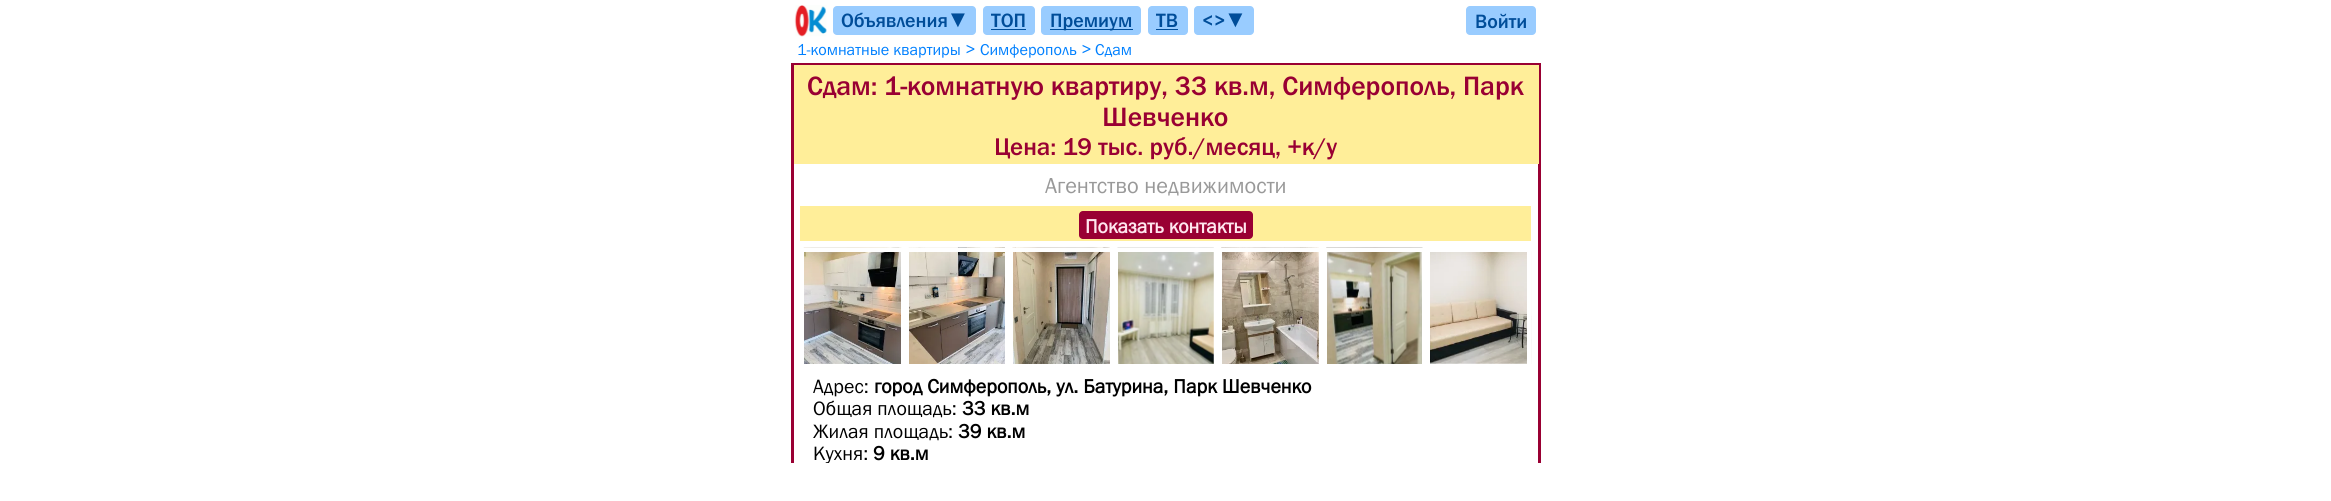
#include <cairo/cairo.h>
#include <math.h>
#include <stddef.h>

typedef struct { double x, y; const char *s; } line_t;
static cairo_t *cr;

static void rgb(unsigned color)
{
	cairo_set_source_rgb(cr, (color >> 16) / 255.0, (color >> 8 & 255) / 255.0, (color & 255) / 255.0);
}

static void rrect(double x, double y, double w, double h, double r)
{
	cairo_new_sub_path(cr);
	cairo_arc(cr, x + w - r, y + h - r, r, 0, M_PI / 2);
	cairo_arc(cr, x + r, y + h - r, r, M_PI / 2, M_PI);
	cairo_arc(cr, x + r, y + r, r, M_PI, 1.5 * M_PI);
	cairo_arc(cr, x + w - r, y + r, r, 1.5 * M_PI, 2 * M_PI);
	cairo_close_path(cr);
}

static void image(const char *path, double x, double y, double w, double h)
{
	cairo_surface_t *image = cairo_image_surface_create_from_png(path);
	cairo_save(cr);
	cairo_set_source_surface(cr, image, x, y);
	cairo_rectangle(cr, x, y, w, h);
	cairo_fill(cr);
	cairo_restore(cr);
	cairo_surface_destroy(image);
}

int main(void) {
	cairo_surface_t *surface = cairo_image_surface_create(CAIRO_FORMAT_RGB24, 2331, 501);
	cr = cairo_create(surface);
	cairo_font_options_t *options = cairo_font_options_create();
	cairo_font_options_set_hint_metrics(options, CAIRO_HINT_METRICS_OFF);
	cairo_font_options_set_hint_style(options, CAIRO_HINT_STYLE_NONE);
	cairo_set_font_options(cr, options);
	cairo_set_miter_limit(cr, 4);
	rgb(0xffffff);
	cairo_paint(cr);
	image("img/1.png", 794, 5, 33, 32);
	rgb(0x99ccff);
	rrect(833, 6, 143, 29, 4);
	cairo_fill(cr);
	rrect(983, 6, 52, 29, 4);
	cairo_fill(cr);
	rgb(0x004d99);
	cairo_rectangle(cr, 991, 29, 35, 1);
	cairo_fill(cr);
	rgb(0x99ccff);
	rrect(1041, 6, 100, 29, 4);
	cairo_fill(cr);
	rgb(0x004d99);
	cairo_rectangle(cr, 1050, 29, 83, 1);
	cairo_fill(cr);
	rgb(0x99ccff);
	rrect(1148, 6, 40, 29, 4);
	cairo_fill(cr);
	rgb(0x004d99);
	cairo_rectangle(cr, 1156, 29, 22, 1);
	cairo_fill(cr);
	rgb(0x99ccff);
	rrect(1194, 6, 60, 29, 4);
	cairo_fill(cr);
	rrect(1466, 6, 70, 29, 4);
	cairo_fill(cr);
	cairo_rectangle(cr, 792.5, 64.5, 747, 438);
	rgb(0x990033);
	cairo_set_line_width(cr, 3);
	cairo_stroke(cr);
	rgb(0xffee99);
	cairo_rectangle(cr, 794, 65, 745, 99);
	cairo_fill(cr);
	cairo_rectangle(cr, 800, 206, 731, 35);
	cairo_fill(cr);
	rgb(0x990033);
	rrect(1079, 211, 174, 28, 4);
	cairo_fill(cr);
	image("img/2.png", 803, 247, 99, 117);
	cairo_rectangle(cr, 802, 250, 101, 116);
	rgb(0xffffff);
	cairo_set_line_width(cr, 4);
	cairo_stroke(cr);
	image("img/3.png", 908, 247, 97, 117);
	cairo_rectangle(cr, 907, 250, 100, 116);
	cairo_stroke(cr);
	image("img/4.png", 1012, 247, 98, 117);
	cairo_rectangle(cr, 1011, 250, 101, 116);
	cairo_stroke(cr);
	image("img/5.png", 1117, 247, 97, 117);
	cairo_rectangle(cr, 1116, 250, 100, 116);
	cairo_stroke(cr);
	image("img/6.png", 1221, 247, 98, 117);
	cairo_rectangle(cr, 1220, 250, 101, 116);
	cairo_stroke(cr);
	image("img/7.png", 1326, 247, 97, 117);
	cairo_rectangle(cr, 1325, 250, 99, 116);
	cairo_stroke(cr);
	image("img/8.png", 1430, 251, 102, 113);
	cairo_rectangle(cr, 1428, 250, 101, 116);
	cairo_stroke(cr);
	cairo_select_font_face(cr, "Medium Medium", CAIRO_FONT_SLANT_NORMAL, CAIRO_FONT_WEIGHT_NORMAL);
	cairo_set_font_size(cr, 20);
	rgb(0x004d99);
	{
		static const line_t items[] = {
			{841, 27, "Объявления▼"},
			{991, 27, "ТОП"},
			{1050, 27, "Премиум"},
			{1156, 27, "ТВ"},
			{1202, 27, "<>▼"},
			{1475, 28, "Войти"},
		};
		for (size_t i = 0; i < sizeof items / sizeof *items; i++) {
			cairo_move_to(cr, items[i].x, items[i].y);
			cairo_show_text(cr, items[i].s);
		}
	}
	cairo_select_font_face(cr, "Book", CAIRO_FONT_SLANT_NORMAL, CAIRO_FONT_WEIGHT_NORMAL);
	cairo_set_font_size(cr, 16.25);
	rgb(0x0080ff);
	cairo_move_to(cr, 797, 55);
	cairo_show_text(cr, "1-комнатные квартиры");
	cairo_set_font_size(cr, 18);
	cairo_move_to(cr, 965, 55);
	cairo_show_text(cr, ">");
	cairo_set_font_size(cr, 16.25);
	cairo_move_to(cr, 980, 55);
	cairo_show_text(cr, "Симферополь");
	cairo_set_font_size(cr, 18);
	cairo_move_to(cr, 1081, 55);
	cairo_show_text(cr, ">");
	cairo_set_font_size(cr, 16.25);
	cairo_move_to(cr, 1095, 55);
	cairo_show_text(cr, "Сдам");
	cairo_select_font_face(cr, "Medium Medium", CAIRO_FONT_SLANT_NORMAL, CAIRO_FONT_WEIGHT_NORMAL);
	cairo_set_font_size(cr, 27.5);
	rgb(0x990033);
	cairo_move_to(cr, 807, 95);
	cairo_show_text(cr, "Сдам: 1-комнатную квартиру, 33 кв.м, Симферополь, Парк");
	cairo_move_to(cr, 1102, 126);
	cairo_show_text(cr, "Шевченко");
	cairo_set_font_size(cr, 25);
	cairo_move_to(cr, 994, 155);
	cairo_show_text(cr, "Цена: 19 тыс. руб./месяц, +к/у");
	cairo_select_font_face(cr, "Book", CAIRO_FONT_SLANT_NORMAL, CAIRO_FONT_WEIGHT_NORMAL);
	cairo_set_font_size(cr, 22.5);
	rgb(0x999999);
	cairo_move_to(cr, 1045, 193);
	cairo_show_text(cr, "Агентство недвижимости");
	cairo_select_font_face(cr, "Book", CAIRO_FONT_SLANT_NORMAL, CAIRO_FONT_WEIGHT_BOLD);
	cairo_set_font_size(cr, 20);
	rgb(0xffe6ee);
	cairo_move_to(cr, 1085, 233);
	cairo_show_text(cr, "Показать контакты");
	cairo_select_font_face(cr, "Book", CAIRO_FONT_SLANT_NORMAL, CAIRO_FONT_WEIGHT_NORMAL);
	rgb(0x000000);
	cairo_move_to(cr, 813, 393);
	cairo_show_text(cr, "Адрес:");
	cairo_select_font_face(cr, "Book", CAIRO_FONT_SLANT_NORMAL, CAIRO_FONT_WEIGHT_BOLD);
	cairo_move_to(cr, 874, 393);
	cairo_show_text(cr, "город Симферополь, ул. Батурина, Парк Шевченко");
	cairo_select_font_face(cr, "Book", CAIRO_FONT_SLANT_NORMAL, CAIRO_FONT_WEIGHT_NORMAL);
	cairo_move_to(cr, 813, 415);
	cairo_show_text(cr, "Общая площадь:");
	cairo_select_font_face(cr, "Book", CAIRO_FONT_SLANT_NORMAL, CAIRO_FONT_WEIGHT_BOLD);
	cairo_move_to(cr, 962, 415);
	cairo_show_text(cr, "33 кв.м");
	cairo_select_font_face(cr, "Book", CAIRO_FONT_SLANT_NORMAL, CAIRO_FONT_WEIGHT_NORMAL);
	cairo_move_to(cr, 813, 438);
	cairo_show_text(cr, "Жилая площадь:");
	cairo_select_font_face(cr, "Book", CAIRO_FONT_SLANT_NORMAL, CAIRO_FONT_WEIGHT_BOLD);
	cairo_move_to(cr, 958, 438);
	cairo_show_text(cr, "39 кв.м");
	cairo_select_font_face(cr, "Book", CAIRO_FONT_SLANT_NORMAL, CAIRO_FONT_WEIGHT_NORMAL);
	cairo_move_to(cr, 813, 460);
	cairo_show_text(cr, "Кухня:");
	cairo_select_font_face(cr, "Book", CAIRO_FONT_SLANT_NORMAL, CAIRO_FONT_WEIGHT_BOLD);
	cairo_move_to(cr, 873, 460);
	cairo_show_text(cr, "9 кв.м");
	rgb(0xffffff);
	cairo_rectangle(cr, 791, 463, 750, 38);
	cairo_fill(cr);
	cairo_surface_write_to_png(surface, "page.png");
	cairo_font_options_destroy(options);
	cairo_destroy(cr);
	cairo_surface_destroy(surface);
	return 0;
}
